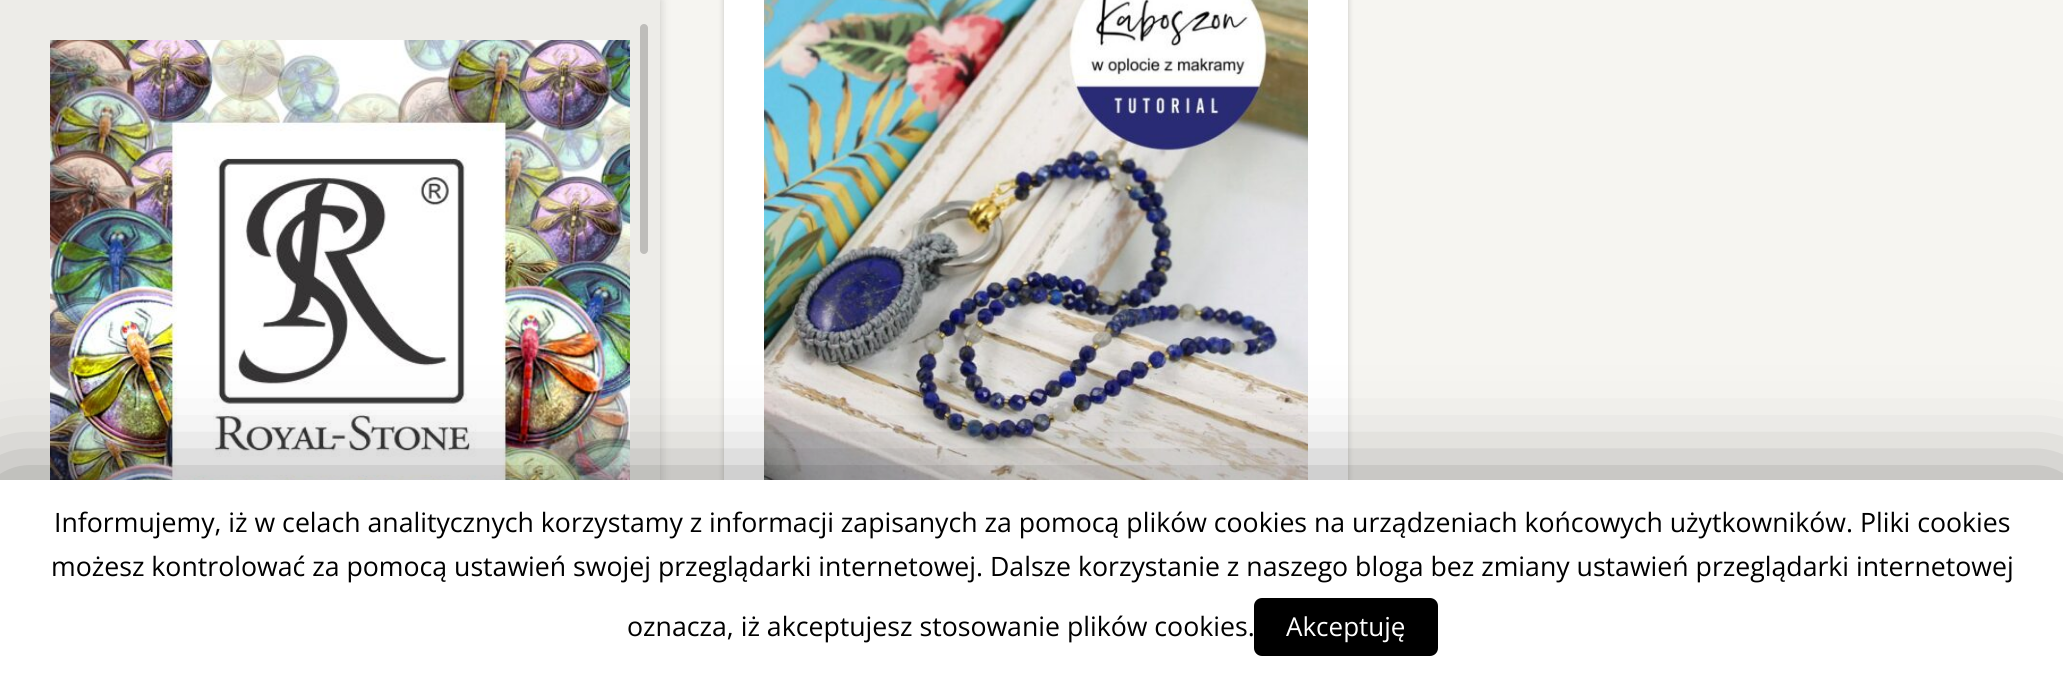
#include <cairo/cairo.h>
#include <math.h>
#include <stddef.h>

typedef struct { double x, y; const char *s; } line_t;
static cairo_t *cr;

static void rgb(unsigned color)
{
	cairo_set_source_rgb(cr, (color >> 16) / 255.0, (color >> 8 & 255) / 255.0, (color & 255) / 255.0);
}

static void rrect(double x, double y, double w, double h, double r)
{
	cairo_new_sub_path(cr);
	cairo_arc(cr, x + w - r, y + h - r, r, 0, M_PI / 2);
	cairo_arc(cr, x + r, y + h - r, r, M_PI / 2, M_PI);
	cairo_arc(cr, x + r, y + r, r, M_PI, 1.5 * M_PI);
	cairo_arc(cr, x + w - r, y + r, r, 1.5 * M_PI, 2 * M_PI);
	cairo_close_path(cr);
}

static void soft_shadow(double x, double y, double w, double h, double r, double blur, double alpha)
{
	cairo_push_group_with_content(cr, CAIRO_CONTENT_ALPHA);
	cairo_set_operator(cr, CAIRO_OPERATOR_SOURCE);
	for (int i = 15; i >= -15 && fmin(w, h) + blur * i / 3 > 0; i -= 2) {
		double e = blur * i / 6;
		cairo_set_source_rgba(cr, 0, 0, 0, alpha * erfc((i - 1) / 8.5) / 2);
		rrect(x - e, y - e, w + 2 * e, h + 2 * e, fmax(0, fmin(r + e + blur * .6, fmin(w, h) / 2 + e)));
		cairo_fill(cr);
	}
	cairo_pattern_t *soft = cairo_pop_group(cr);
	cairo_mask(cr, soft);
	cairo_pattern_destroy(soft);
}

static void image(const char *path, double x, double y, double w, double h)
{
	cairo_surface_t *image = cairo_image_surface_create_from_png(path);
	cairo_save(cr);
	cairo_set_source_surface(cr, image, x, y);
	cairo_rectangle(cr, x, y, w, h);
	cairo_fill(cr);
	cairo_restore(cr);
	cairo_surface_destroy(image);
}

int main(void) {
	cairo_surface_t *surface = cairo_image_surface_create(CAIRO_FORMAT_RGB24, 2063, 676);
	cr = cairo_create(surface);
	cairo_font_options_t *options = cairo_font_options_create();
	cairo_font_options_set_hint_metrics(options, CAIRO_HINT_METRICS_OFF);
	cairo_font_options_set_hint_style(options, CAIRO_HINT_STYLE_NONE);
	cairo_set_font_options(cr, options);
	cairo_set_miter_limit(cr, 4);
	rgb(0xf6f5f1);
	cairo_paint(cr);
	rgb(0x000000);
	soft_shadow(0, 0, 660, 676, 0, 5, 0.2);
	rgb(0xedece8);
	cairo_rectangle(cr, 0, 0, 660, 480);
	cairo_fill(cr);
	image("img/1.png", 50, 40, 580, 440);
	rgb(0xbebdba);
	rrect(640, 24, 8, 230, 4);
	cairo_fill(cr);
	rgb(0x000000);
	soft_shadow(724, -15, 624, 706, 6, 3, 0.2);
	rgb(0xffffff);
	cairo_rectangle(cr, 724, 0, 624, 480);
	cairo_fill(cr);
	image("img/2.png", 764, 0, 544, 480);
	rgb(0x000000);
	soft_shadow(0, 490, 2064, 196, 0, 50, 0.5);
	rgb(0xffffff);
	cairo_rectangle(cr, 0, 480, 2063, 196);
	cairo_fill(cr);
	rgb(0x000000);
	rrect(1254, 598, 184, 58, 8);
	cairo_fill(cr);
	cairo_select_font_face(cr, "Open Sans", CAIRO_FONT_SLANT_NORMAL, CAIRO_FONT_WEIGHT_NORMAL);
	cairo_set_font_size(cr, 26.67);
	{
		static const line_t items[] = {
			{54, 532, "Informujemy, iż w celach analitycznych korzystamy z informacji zapisanych za pomocą plików cookies na urządzeniach końcowych użytkowników. Pliki cookies"},
			{51, 576, "możesz kontrolować za pomocą ustawień swojej przeglądarki internetowej. Dalsze korzystanie z naszego bloga bez zmiany ustawień przeglądarki internetowej"},
			{627, 636, "oznacza, iż akceptujesz stosowanie plików cookies."},
		};
		for (size_t i = 0; i < sizeof items / sizeof *items; i++) {
			cairo_move_to(cr, items[i].x, items[i].y);
			cairo_show_text(cr, items[i].s);
		}
	}
	cairo_set_font_size(cr, 26);
	rgb(0xffffff);
	cairo_move_to(cr, 1286, 636);
	cairo_show_text(cr, "Akceptuję");
	cairo_surface_write_to_png(surface, "page.png");
	cairo_font_options_destroy(options);
	cairo_destroy(cr);
	cairo_surface_destroy(surface);
	return 0;
}
